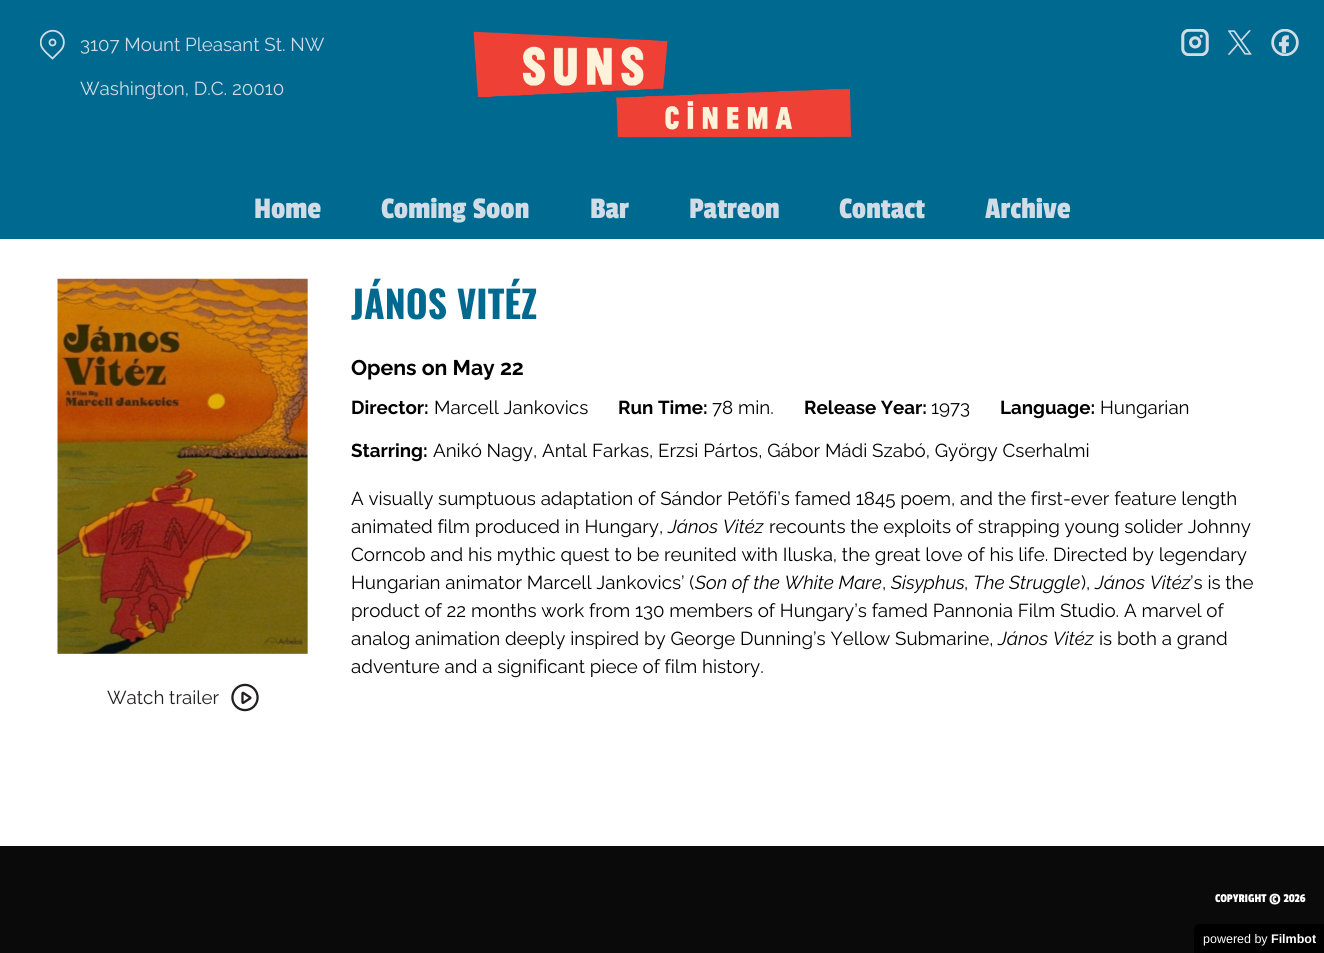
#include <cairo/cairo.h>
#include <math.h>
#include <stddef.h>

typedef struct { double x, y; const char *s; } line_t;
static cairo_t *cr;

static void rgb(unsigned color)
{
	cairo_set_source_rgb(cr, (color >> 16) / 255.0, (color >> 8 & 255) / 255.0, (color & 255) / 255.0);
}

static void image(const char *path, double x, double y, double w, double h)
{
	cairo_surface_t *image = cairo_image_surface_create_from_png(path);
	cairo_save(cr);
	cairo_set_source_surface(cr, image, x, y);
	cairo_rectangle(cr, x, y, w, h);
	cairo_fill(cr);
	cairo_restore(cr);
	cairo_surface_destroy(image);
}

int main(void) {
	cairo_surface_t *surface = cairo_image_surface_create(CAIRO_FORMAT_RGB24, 1324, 953);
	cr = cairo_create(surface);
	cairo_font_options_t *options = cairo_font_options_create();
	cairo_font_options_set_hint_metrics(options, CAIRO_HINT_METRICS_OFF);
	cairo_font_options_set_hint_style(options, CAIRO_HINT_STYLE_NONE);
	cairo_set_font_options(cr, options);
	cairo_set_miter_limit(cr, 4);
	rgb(0xffffff);
	cairo_paint(cr);
	rgb(0x00698f);
	cairo_rectangle(cr, 0, 0, 1324, 239);
	cairo_fill(cr);
	cairo_save(cr);
	cairo_rectangle(cr, 40, 24, 25, 42);
	cairo_clip(cr);
	cairo_new_path(cr);
	cairo_move_to(cr, 60.5, 34);
	cairo_curve_to(cr, 65, 38.5, 65, 46, 60.5, 50.5);
	cairo_line_to(cr, 52.5, 58.5);
	cairo_curve_to(cr, 49.5, 55.5, 43.5, 51, 41.5, 46.5);
	cairo_curve_to(cr, 37, 35, 52, 25.5, 60.5, 34);
	cairo_close_path(cr);
	rgb(0xd1dce6);
	cairo_set_line_width(cr, 1.8);
	cairo_stroke(cr);
	cairo_restore(cr);
	cairo_arc(cr, 52.5, 42.5, 3, 0, 2 * M_PI);
	rgb(0xd1dce6);
	cairo_set_line_width(cr, 1.8);
	cairo_stroke(cr);
	image("img/1.png", 473, 31, 379, 107);
	image("img/2.png", 1181, 29, 28, 27);
	image("img/3.png", 1228, 30, 24, 25);
	image("img/4.png", 1271, 29, 28, 27);
	rgb(0xcccccc);
	cairo_rectangle(cr, 58, 279, 250, 375);
	cairo_fill(cr);
	image("img/5.png", 57, 278, 251, 376);
	image("img/6.png", 231, 683, 28, 29);
	rgb(0x0a0a0a);
	cairo_rectangle(cr, 0, 846, 1324, 107);
	cairo_fill(cr);
	rgb(0x000000);
	cairo_new_path(cr);
	cairo_move_to(cr, 1200, 924);
	cairo_line_to(cr, 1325, 924);
	cairo_line_to(cr, 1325, 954);
	cairo_line_to(cr, 1194, 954);
	cairo_line_to(cr, 1194, 930);
	cairo_curve_to(cr, 1194, 926.5, 1196.5, 924, 1200, 924);
	cairo_close_path(cr);
	cairo_fill(cr);
	cairo_select_font_face(cr, "Raleway", CAIRO_FONT_SLANT_NORMAL, CAIRO_FONT_WEIGHT_NORMAL);
	cairo_set_font_size(cr, 18.75);
	rgb(0xd1dce6);
	cairo_move_to(cr, 80, 51);
	cairo_show_text(cr, "3107 Mount Pleasant St. NW");
	cairo_move_to(cr, 80, 95);
	cairo_show_text(cr, "Washington, D.C. 20010");
	cairo_select_font_face(cr, "Passion One", CAIRO_FONT_SLANT_NORMAL, CAIRO_FONT_WEIGHT_NORMAL);
	cairo_set_font_size(cr, 31.25);
	{
		static const line_t items[] = {
			{254, 218, "Home"},
			{381, 218, "Coming Soon"},
			{590, 218, "Bar"},
			{689, 218, "Patreon"},
			{839, 218, "Contact"},
			{985, 218, "Archive"},
		};
		for (size_t i = 0; i < sizeof items / sizeof *items; i++) {
			cairo_move_to(cr, items[i].x, items[i].y);
			cairo_show_text(cr, items[i].s);
		}
	}
	cairo_select_font_face(cr, "Oswald", CAIRO_FONT_SLANT_NORMAL, CAIRO_FONT_WEIGHT_BOLD);
	cairo_set_font_size(cr, 37.5);
	rgb(0x00698f);
	cairo_move_to(cr, 351, 319);
	cairo_show_text(cr, "JÁNOS VITÉZ");
	cairo_select_font_face(cr, "Raleway", CAIRO_FONT_SLANT_NORMAL, CAIRO_FONT_WEIGHT_BOLD);
	cairo_set_font_size(cr, 21.25);
	rgb(0x000000);
	cairo_move_to(cr, 351, 375);
	cairo_show_text(cr, "Opens on May 22");
	cairo_set_font_size(cr, 18.75);
	cairo_move_to(cr, 351, 414);
	cairo_show_text(cr, "Director:");
	cairo_select_font_face(cr, "Raleway", CAIRO_FONT_SLANT_NORMAL, CAIRO_FONT_WEIGHT_NORMAL);
	cairo_move_to(cr, 434, 414);
	cairo_show_text(cr, "Marcell Jankovics");
	cairo_select_font_face(cr, "Raleway", CAIRO_FONT_SLANT_NORMAL, CAIRO_FONT_WEIGHT_BOLD);
	cairo_move_to(cr, 618, 414);
	cairo_show_text(cr, "Run Time:");
	cairo_select_font_face(cr, "Raleway", CAIRO_FONT_SLANT_NORMAL, CAIRO_FONT_WEIGHT_NORMAL);
	cairo_move_to(cr, 712, 414);
	cairo_show_text(cr, "78 min.");
	cairo_select_font_face(cr, "Raleway", CAIRO_FONT_SLANT_NORMAL, CAIRO_FONT_WEIGHT_BOLD);
	cairo_move_to(cr, 804, 414);
	cairo_show_text(cr, "Release Year:");
	cairo_select_font_face(cr, "Raleway", CAIRO_FONT_SLANT_NORMAL, CAIRO_FONT_WEIGHT_NORMAL);
	cairo_move_to(cr, 931, 414);
	cairo_show_text(cr, "1973");
	cairo_select_font_face(cr, "Raleway", CAIRO_FONT_SLANT_NORMAL, CAIRO_FONT_WEIGHT_BOLD);
	cairo_move_to(cr, 1000, 414);
	cairo_show_text(cr, "Language:");
	cairo_select_font_face(cr, "Raleway", CAIRO_FONT_SLANT_NORMAL, CAIRO_FONT_WEIGHT_NORMAL);
	cairo_move_to(cr, 1100, 414);
	cairo_show_text(cr, "Hungarian");
	cairo_select_font_face(cr, "Raleway", CAIRO_FONT_SLANT_NORMAL, CAIRO_FONT_WEIGHT_BOLD);
	cairo_move_to(cr, 351, 457);
	cairo_show_text(cr, "Starring:");
	cairo_select_font_face(cr, "Raleway", CAIRO_FONT_SLANT_NORMAL, CAIRO_FONT_WEIGHT_NORMAL);
	{
		static const line_t items[] = {
			{433, 457, "Anikó Nagy, Antal Farkas, Erzsi Pártos, Gábor Mádi Szabó, György Cserhalmi"},
			{351, 505, "A visually sumptuous adaptation of Sándor Petőfi’s famed 1845 poem, and the first-ever feature length"},
			{351, 533, "animated film produced in Hungary,"},
		};
		for (size_t i = 0; i < sizeof items / sizeof *items; i++) {
			cairo_move_to(cr, items[i].x, items[i].y);
			cairo_show_text(cr, items[i].s);
		}
	}
	cairo_select_font_face(cr, "Raleway Thin", CAIRO_FONT_SLANT_ITALIC, CAIRO_FONT_WEIGHT_NORMAL);
	cairo_move_to(cr, 668, 533);
	cairo_show_text(cr, "János Vitéz");
	cairo_select_font_face(cr, "Raleway", CAIRO_FONT_SLANT_NORMAL, CAIRO_FONT_WEIGHT_NORMAL);
	{
		static const line_t items[] = {
			{769, 533, "recounts the exploits of strapping young solider Johnny"},
			{351, 561, "Corncob and his mythic quest to be reunited with Iluska, the great love of his life. Directed by legendary"},
			{351, 589, "Hungarian animator Marcell Jankovics’ ("},
		};
		for (size_t i = 0; i < sizeof items / sizeof *items; i++) {
			cairo_move_to(cr, items[i].x, items[i].y);
			cairo_show_text(cr, items[i].s);
		}
	}
	cairo_select_font_face(cr, "Raleway Thin", CAIRO_FONT_SLANT_ITALIC, CAIRO_FONT_WEIGHT_NORMAL);
	cairo_move_to(cr, 695, 589);
	cairo_show_text(cr, "Son of the White Mare");
	cairo_select_font_face(cr, "Raleway", CAIRO_FONT_SLANT_NORMAL, CAIRO_FONT_WEIGHT_NORMAL);
	cairo_move_to(cr, 882, 589);
	cairo_show_text(cr, ",");
	cairo_select_font_face(cr, "Raleway Thin", CAIRO_FONT_SLANT_ITALIC, CAIRO_FONT_WEIGHT_NORMAL);
	cairo_move_to(cr, 891, 589);
	cairo_show_text(cr, "Sisyphus");
	cairo_select_font_face(cr, "Raleway", CAIRO_FONT_SLANT_NORMAL, CAIRO_FONT_WEIGHT_NORMAL);
	cairo_move_to(cr, 964, 589);
	cairo_show_text(cr, ",");
	cairo_select_font_face(cr, "Raleway Thin", CAIRO_FONT_SLANT_ITALIC, CAIRO_FONT_WEIGHT_NORMAL);
	cairo_move_to(cr, 973, 589);
	cairo_show_text(cr, "The Struggle");
	cairo_select_font_face(cr, "Raleway", CAIRO_FONT_SLANT_NORMAL, CAIRO_FONT_WEIGHT_NORMAL);
	cairo_move_to(cr, 1081, 589);
	cairo_show_text(cr, "),");
	cairo_select_font_face(cr, "Raleway Thin", CAIRO_FONT_SLANT_ITALIC, CAIRO_FONT_WEIGHT_NORMAL);
	cairo_move_to(cr, 1095, 589);
	cairo_show_text(cr, "János Vitéz");
	cairo_select_font_face(cr, "Raleway", CAIRO_FONT_SLANT_NORMAL, CAIRO_FONT_WEIGHT_NORMAL);
	{
		static const line_t items[] = {
			{1190, 589, "’s is the"},
			{351, 617, "product of 22 months work from 130 members of Hungary’s famed Pannonia Film Studio. A marvel of"},
			{351, 645, "analog animation deeply inspired by George Dunning’s Yellow Submarine,"},
		};
		for (size_t i = 0; i < sizeof items / sizeof *items; i++) {
			cairo_move_to(cr, items[i].x, items[i].y);
			cairo_show_text(cr, items[i].s);
		}
	}
	cairo_select_font_face(cr, "Raleway Thin", CAIRO_FONT_SLANT_ITALIC, CAIRO_FONT_WEIGHT_NORMAL);
	cairo_move_to(cr, 998, 645);
	cairo_show_text(cr, "János Vitéz");
	cairo_select_font_face(cr, "Raleway", CAIRO_FONT_SLANT_NORMAL, CAIRO_FONT_WEIGHT_NORMAL);
	cairo_move_to(cr, 1099, 645);
	cairo_show_text(cr, "is both a grand");
	cairo_move_to(cr, 351, 673);
	cairo_show_text(cr, "adventure and a significant piece of film history.");
	rgb(0x231f20);
	cairo_move_to(cr, 107, 704);
	cairo_show_text(cr, "Watch trailer");
	cairo_select_font_face(cr, "Passion One", CAIRO_FONT_SLANT_NORMAL, CAIRO_FONT_WEIGHT_NORMAL);
	cairo_set_font_size(cr, 12.5);
	rgb(0xffffff);
	cairo_move_to(cr, 1215, 902);
	cairo_show_text(cr, "COPYRIGHT © 2026");
	cairo_select_font_face(cr, "Liberation Sans", CAIRO_FONT_SLANT_NORMAL, CAIRO_FONT_WEIGHT_NORMAL);
	cairo_move_to(cr, 1203, 943);
	cairo_show_text(cr, "powered by");
	cairo_select_font_face(cr, "Liberation Sans", CAIRO_FONT_SLANT_NORMAL, CAIRO_FONT_WEIGHT_BOLD);
	cairo_move_to(cr, 1271, 943);
	cairo_show_text(cr, "Filmbot");
	cairo_surface_write_to_png(surface, "page.png");
	cairo_font_options_destroy(options);
	cairo_destroy(cr);
	cairo_surface_destroy(surface);
	return 0;
}
